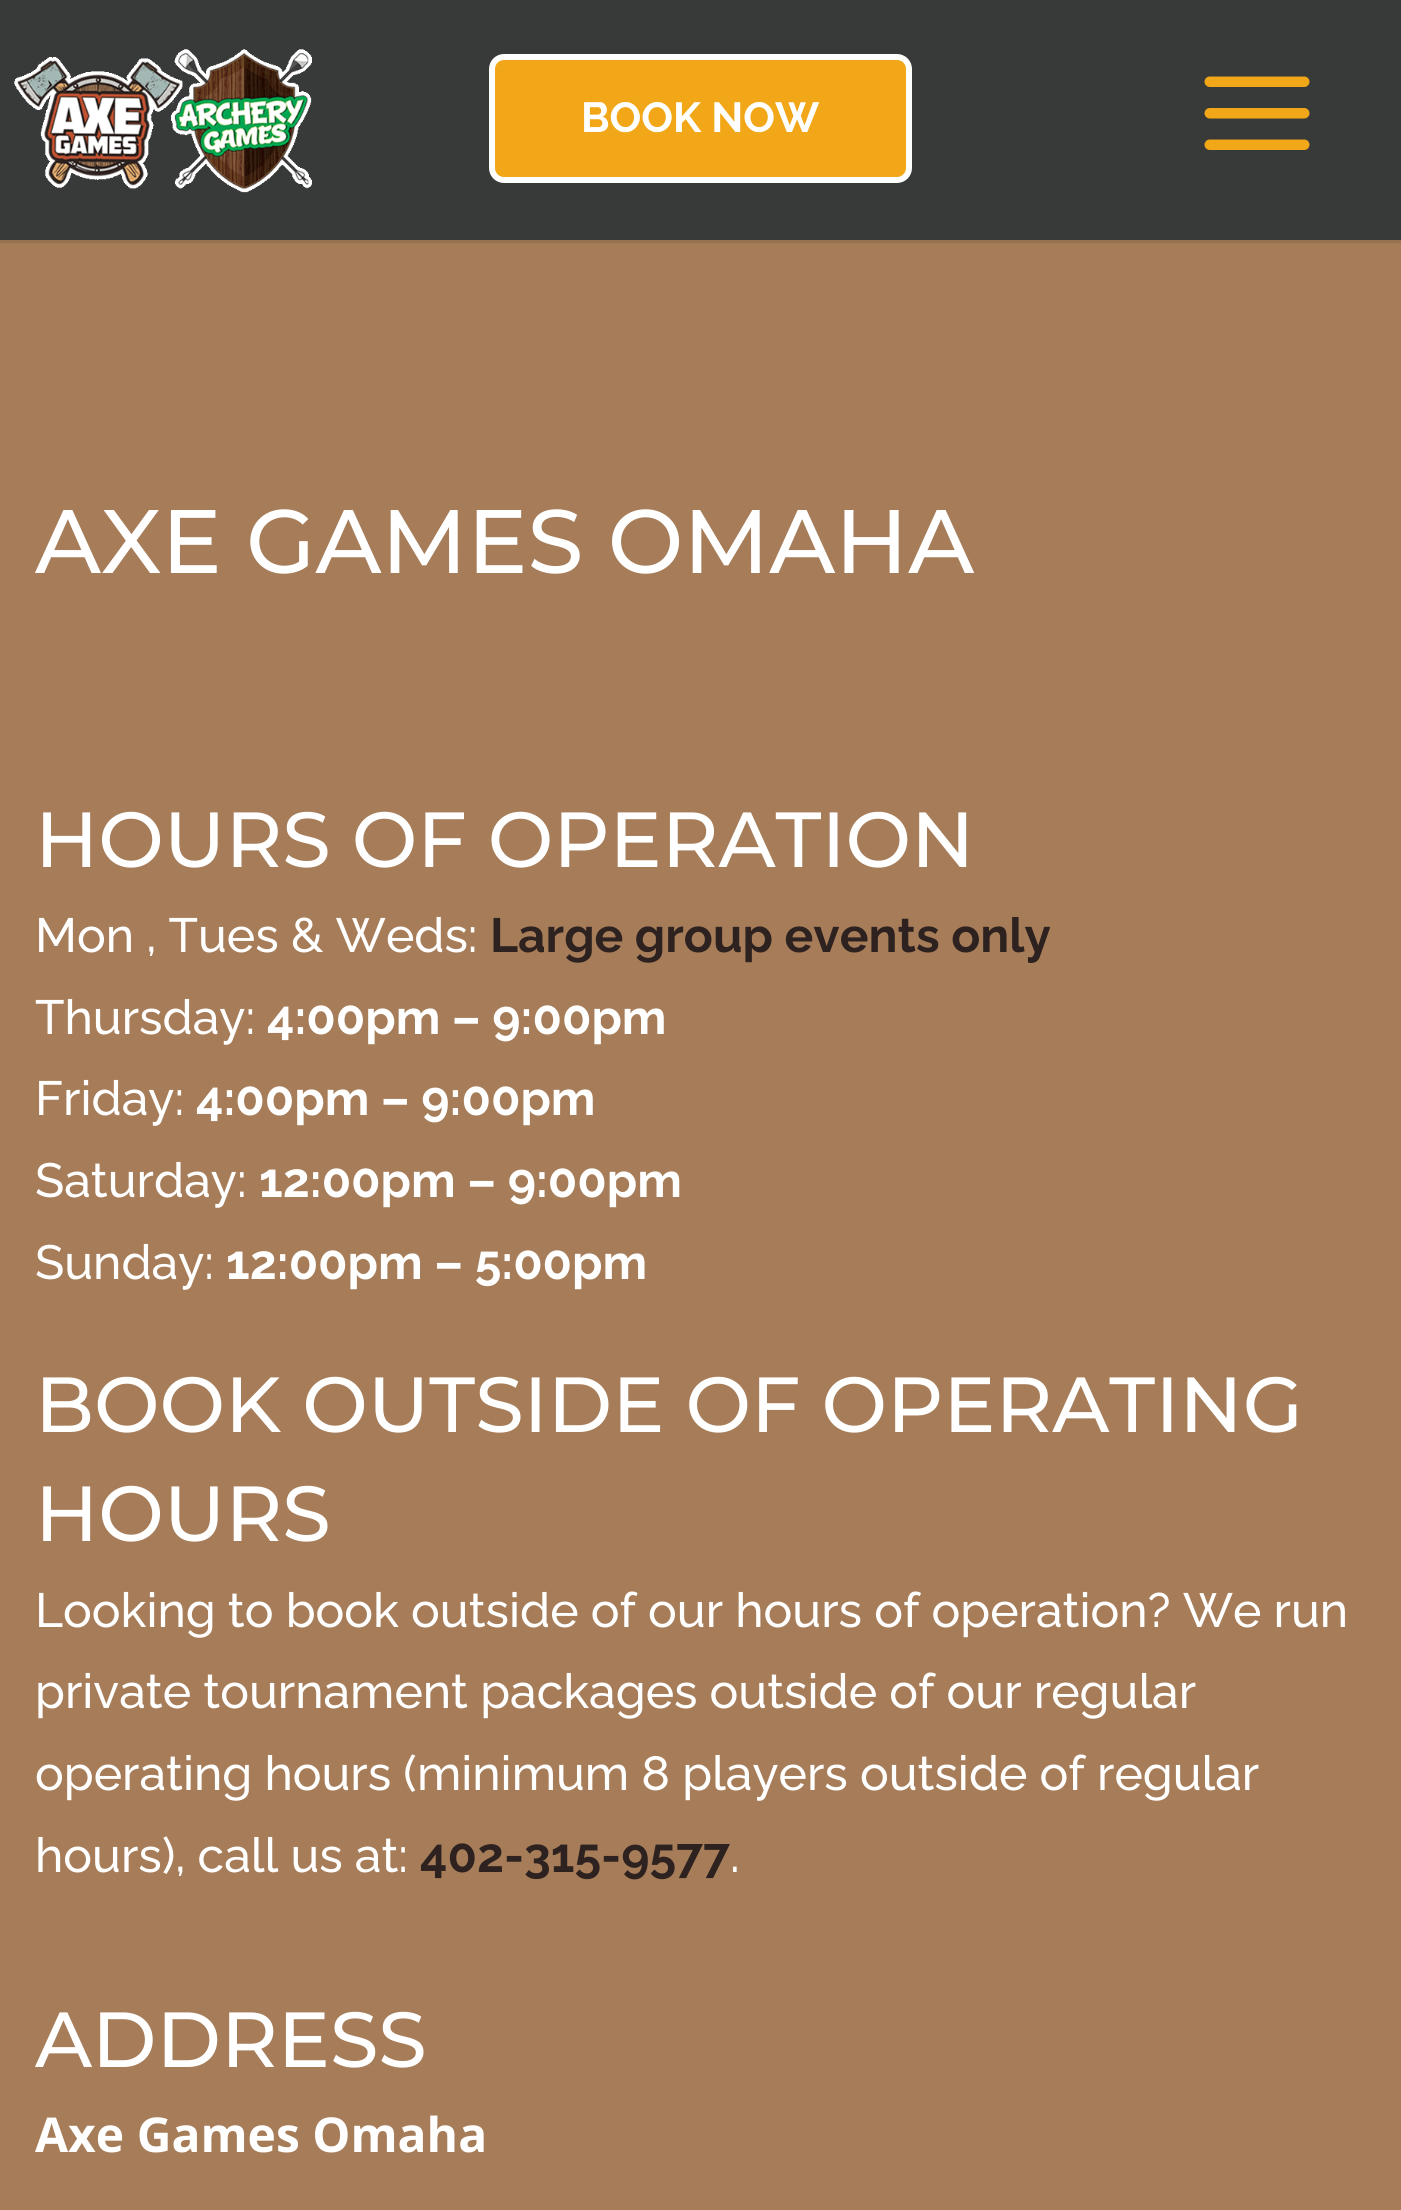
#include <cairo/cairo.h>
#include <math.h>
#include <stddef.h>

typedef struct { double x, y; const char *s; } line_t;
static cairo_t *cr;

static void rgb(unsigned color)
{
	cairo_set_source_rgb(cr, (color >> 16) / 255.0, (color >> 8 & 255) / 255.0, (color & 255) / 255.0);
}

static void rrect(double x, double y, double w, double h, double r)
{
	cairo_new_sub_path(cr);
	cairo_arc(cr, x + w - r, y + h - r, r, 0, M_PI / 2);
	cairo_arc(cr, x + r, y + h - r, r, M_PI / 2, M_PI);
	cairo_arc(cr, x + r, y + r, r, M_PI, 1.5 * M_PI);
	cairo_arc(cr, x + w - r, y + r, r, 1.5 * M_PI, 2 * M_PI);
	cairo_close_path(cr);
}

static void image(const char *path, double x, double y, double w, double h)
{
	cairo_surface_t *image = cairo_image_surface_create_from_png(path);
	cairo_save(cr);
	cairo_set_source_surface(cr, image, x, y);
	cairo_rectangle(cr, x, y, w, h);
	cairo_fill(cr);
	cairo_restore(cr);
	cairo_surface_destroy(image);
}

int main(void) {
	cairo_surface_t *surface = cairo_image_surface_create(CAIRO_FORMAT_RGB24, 1401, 2210);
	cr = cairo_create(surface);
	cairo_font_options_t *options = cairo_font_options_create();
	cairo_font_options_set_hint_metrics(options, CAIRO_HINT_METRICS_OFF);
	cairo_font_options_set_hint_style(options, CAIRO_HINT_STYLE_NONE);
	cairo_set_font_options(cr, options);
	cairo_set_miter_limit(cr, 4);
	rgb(0xa77d59);
	cairo_paint(cr);
	rgb(0x967150);
	cairo_rectangle(cr, 0, 240, 1401, 3);
	cairo_fill(cr);
	rgb(0x383939);
	cairo_rectangle(cr, 0, 0, 1401, 240);
	cairo_fill(cr);
	image("img/1.png", 14, 49, 298, 144);
	image("img/2.png", 1204, 76, 106, 74);
	rgb(0xf1a717);
	rrect(492, 57, 417, 123, 12);
	cairo_fill_preserve(cr);
	rgb(0xffffff);
	cairo_set_line_width(cr, 6);
	cairo_stroke(cr);
	cairo_select_font_face(cr, "Raleway", CAIRO_FONT_SLANT_NORMAL, CAIRO_FONT_WEIGHT_BOLD);
	cairo_set_font_size(cr, 42);
	cairo_move_to(cr, 581, 132);
	cairo_show_text(cr, "BOOK NOW");
	cairo_select_font_face(cr, "Montserrat Medium", CAIRO_FONT_SLANT_NORMAL, CAIRO_FONT_WEIGHT_NORMAL);
	cairo_set_font_size(cr, 90);
	cairo_move_to(cr, 35, 573);
	cairo_show_text(cr, "AXE GAMES OMAHA");
	cairo_set_font_size(cr, 78);
	cairo_move_to(cr, 35, 867);
	cairo_show_text(cr, "HOURS OF OPERATION");
	cairo_select_font_face(cr, "Raleway Medium", CAIRO_FONT_SLANT_NORMAL, CAIRO_FONT_WEIGHT_NORMAL);
	cairo_set_font_size(cr, 48);
	cairo_move_to(cr, 35, 952);
	cairo_show_text(cr, "Mon , Tues & Weds:");
	cairo_select_font_face(cr, "Raleway", CAIRO_FONT_SLANT_NORMAL, CAIRO_FONT_WEIGHT_BOLD);
	rgb(0x2d221f);
	cairo_move_to(cr, 490, 952);
	cairo_show_text(cr, "Large group events only");
	cairo_select_font_face(cr, "Raleway Medium", CAIRO_FONT_SLANT_NORMAL, CAIRO_FONT_WEIGHT_NORMAL);
	rgb(0xffffff);
	cairo_move_to(cr, 35, 1034);
	cairo_show_text(cr, "Thursday:");
	cairo_select_font_face(cr, "Raleway", CAIRO_FONT_SLANT_NORMAL, CAIRO_FONT_WEIGHT_BOLD);
	cairo_move_to(cr, 267, 1034);
	cairo_show_text(cr, "4:00pm – 9:00pm");
	cairo_select_font_face(cr, "Raleway Medium", CAIRO_FONT_SLANT_NORMAL, CAIRO_FONT_WEIGHT_NORMAL);
	cairo_move_to(cr, 35, 1115);
	cairo_show_text(cr, "Friday:");
	cairo_select_font_face(cr, "Raleway", CAIRO_FONT_SLANT_NORMAL, CAIRO_FONT_WEIGHT_BOLD);
	cairo_move_to(cr, 196, 1115);
	cairo_show_text(cr, "4:00pm – 9:00pm");
	cairo_select_font_face(cr, "Raleway Medium", CAIRO_FONT_SLANT_NORMAL, CAIRO_FONT_WEIGHT_NORMAL);
	cairo_move_to(cr, 35, 1197);
	cairo_show_text(cr, "Saturday:");
	cairo_select_font_face(cr, "Raleway", CAIRO_FONT_SLANT_NORMAL, CAIRO_FONT_WEIGHT_BOLD);
	cairo_move_to(cr, 259, 1197);
	cairo_show_text(cr, "12:00pm – 9:00pm");
	cairo_select_font_face(cr, "Raleway Medium", CAIRO_FONT_SLANT_NORMAL, CAIRO_FONT_WEIGHT_NORMAL);
	cairo_move_to(cr, 35, 1279);
	cairo_show_text(cr, "Sunday:");
	cairo_select_font_face(cr, "Raleway", CAIRO_FONT_SLANT_NORMAL, CAIRO_FONT_WEIGHT_BOLD);
	cairo_move_to(cr, 226, 1279);
	cairo_show_text(cr, "12:00pm – 5:00pm");
	cairo_select_font_face(cr, "Montserrat Medium", CAIRO_FONT_SLANT_NORMAL, CAIRO_FONT_WEIGHT_NORMAL);
	cairo_set_font_size(cr, 78);
	cairo_move_to(cr, 35, 1432);
	cairo_show_text(cr, "BOOK OUTSIDE OF OPERATING");
	cairo_move_to(cr, 35, 1541);
	cairo_show_text(cr, "HOURS");
	cairo_select_font_face(cr, "Raleway Medium", CAIRO_FONT_SLANT_NORMAL, CAIRO_FONT_WEIGHT_NORMAL);
	cairo_set_font_size(cr, 48);
	{
		static const line_t items[] = {
			{35, 1627, "Looking to book outside of our hours of operation? We run"},
			{35, 1708, "private tournament packages outside of our regular"},
			{35, 1790, "operating hours (minimum 8 players outside of regular"},
			{35, 1872, "hours), call us at:"},
		};
		for (size_t i = 0; i < sizeof items / sizeof *items; i++) {
			cairo_move_to(cr, items[i].x, items[i].y);
			cairo_show_text(cr, items[i].s);
		}
	}
	cairo_select_font_face(cr, "Raleway", CAIRO_FONT_SLANT_NORMAL, CAIRO_FONT_WEIGHT_BOLD);
	rgb(0x2d221f);
	cairo_move_to(cr, 420, 1872);
	cairo_show_text(cr, "402-315-9577");
	cairo_select_font_face(cr, "Raleway Medium", CAIRO_FONT_SLANT_NORMAL, CAIRO_FONT_WEIGHT_NORMAL);
	rgb(0xffffff);
	cairo_move_to(cr, 730, 1872);
	cairo_show_text(cr, ".");
	cairo_select_font_face(cr, "Montserrat Medium", CAIRO_FONT_SLANT_NORMAL, CAIRO_FONT_WEIGHT_NORMAL);
	cairo_set_font_size(cr, 78);
	cairo_move_to(cr, 35, 2067);
	cairo_show_text(cr, "ADDRESS");
	cairo_select_font_face(cr, "Open Sans", CAIRO_FONT_SLANT_NORMAL, CAIRO_FONT_WEIGHT_BOLD);
	cairo_set_font_size(cr, 48);
	cairo_move_to(cr, 35, 2152);
	cairo_show_text(cr, "Axe Games Omaha");
	cairo_surface_write_to_png(surface, "page.png");
	cairo_font_options_destroy(options);
	cairo_destroy(cr);
	cairo_surface_destroy(surface);
	return 0;
}
